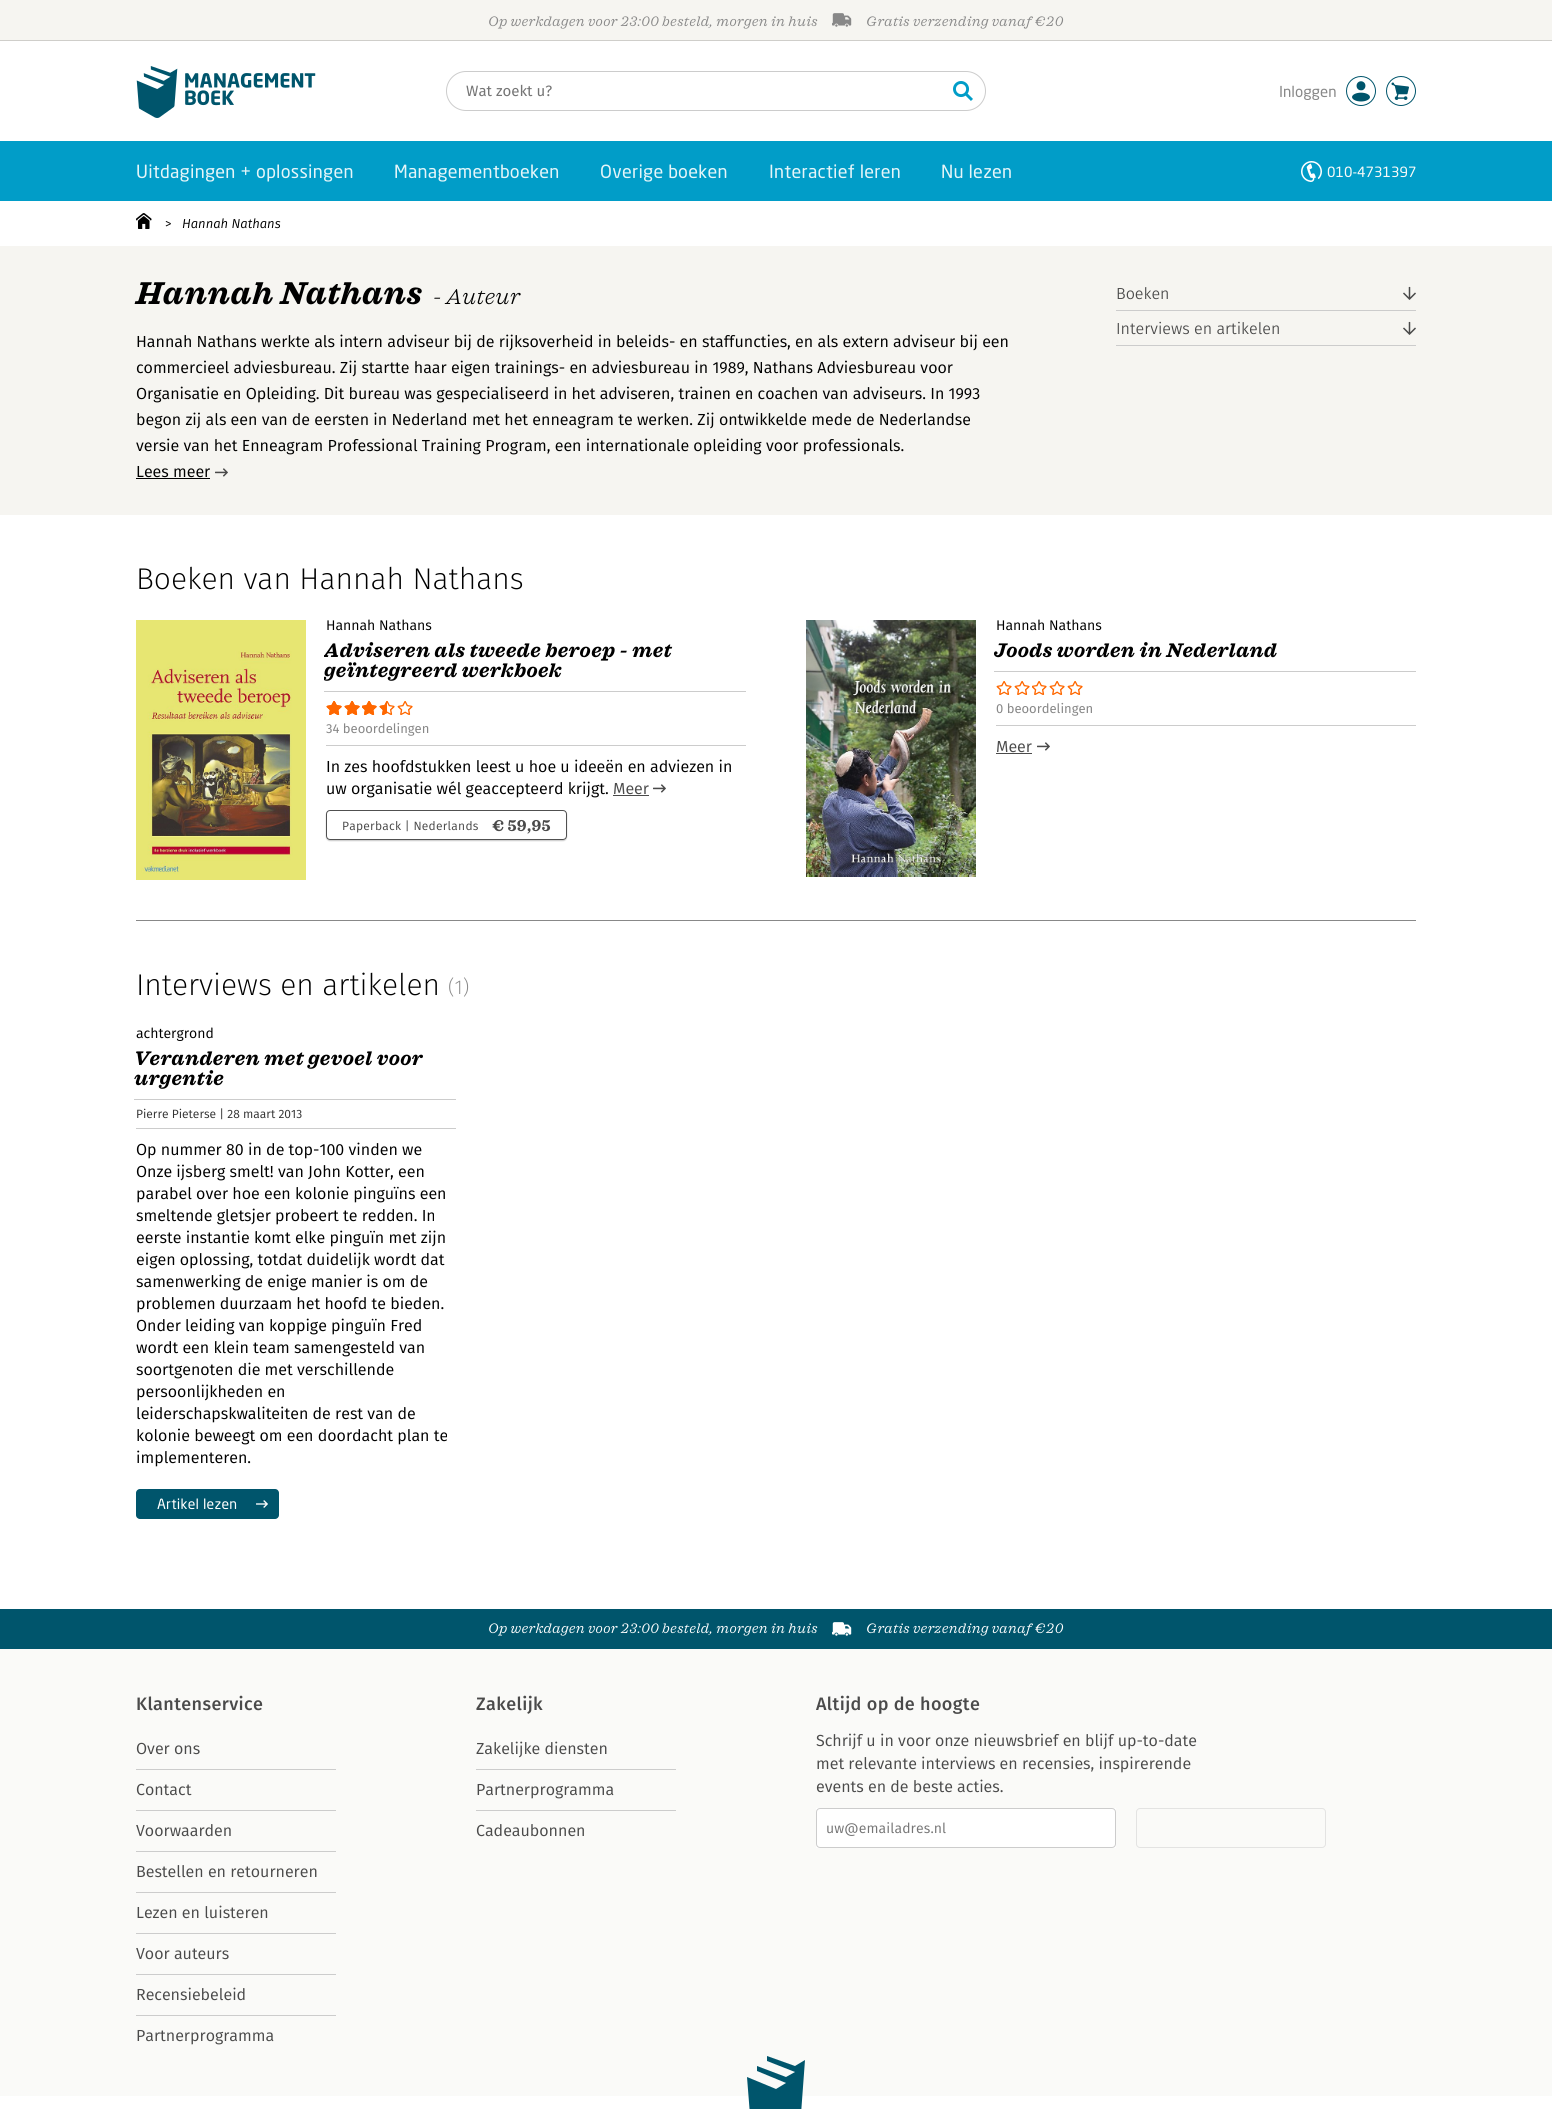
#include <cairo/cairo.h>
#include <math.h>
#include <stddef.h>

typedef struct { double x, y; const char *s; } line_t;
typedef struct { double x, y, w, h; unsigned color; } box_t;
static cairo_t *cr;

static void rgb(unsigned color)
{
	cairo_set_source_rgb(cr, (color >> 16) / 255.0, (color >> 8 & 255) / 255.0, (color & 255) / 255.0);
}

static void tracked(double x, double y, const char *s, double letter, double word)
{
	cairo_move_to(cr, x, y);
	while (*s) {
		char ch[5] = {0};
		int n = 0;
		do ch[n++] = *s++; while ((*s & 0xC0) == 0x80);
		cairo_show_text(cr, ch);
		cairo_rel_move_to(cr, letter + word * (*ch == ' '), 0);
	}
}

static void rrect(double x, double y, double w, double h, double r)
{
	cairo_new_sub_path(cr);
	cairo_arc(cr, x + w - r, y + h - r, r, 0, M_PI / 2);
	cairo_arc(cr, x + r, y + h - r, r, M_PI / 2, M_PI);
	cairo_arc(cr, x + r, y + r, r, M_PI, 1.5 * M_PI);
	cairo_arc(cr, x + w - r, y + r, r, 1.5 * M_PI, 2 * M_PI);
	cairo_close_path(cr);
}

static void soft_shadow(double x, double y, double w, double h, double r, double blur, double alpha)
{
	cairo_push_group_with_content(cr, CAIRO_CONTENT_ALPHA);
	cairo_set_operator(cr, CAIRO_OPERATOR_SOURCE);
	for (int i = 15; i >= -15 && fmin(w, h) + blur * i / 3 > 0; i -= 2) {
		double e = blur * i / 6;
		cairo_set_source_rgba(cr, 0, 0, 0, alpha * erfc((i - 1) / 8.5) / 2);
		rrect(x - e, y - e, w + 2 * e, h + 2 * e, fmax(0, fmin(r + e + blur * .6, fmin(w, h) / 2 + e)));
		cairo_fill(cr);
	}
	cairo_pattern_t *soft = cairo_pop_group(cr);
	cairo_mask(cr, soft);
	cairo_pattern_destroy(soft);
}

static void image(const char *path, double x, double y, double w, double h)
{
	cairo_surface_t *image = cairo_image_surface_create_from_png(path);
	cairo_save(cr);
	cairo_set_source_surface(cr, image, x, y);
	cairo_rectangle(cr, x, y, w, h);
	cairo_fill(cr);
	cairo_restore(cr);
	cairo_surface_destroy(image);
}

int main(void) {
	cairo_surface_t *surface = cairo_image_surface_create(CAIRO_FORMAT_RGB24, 1552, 2109);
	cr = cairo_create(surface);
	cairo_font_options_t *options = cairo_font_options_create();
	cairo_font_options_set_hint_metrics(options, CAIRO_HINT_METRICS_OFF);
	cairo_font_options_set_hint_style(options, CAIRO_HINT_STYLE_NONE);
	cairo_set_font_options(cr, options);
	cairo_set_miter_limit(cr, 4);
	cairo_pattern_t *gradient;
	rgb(0xffffff);
	cairo_paint(cr);
	rgb(0xf6f5f1);
	cairo_rectangle(cr, 0, 0, 1552, 40);
	cairo_fill(cr);
	rgb(0xcfceca);
	cairo_rectangle(cr, 0, 40, 1552, 1);
	cairo_fill(cr);
	image("img/1.png", 832, 13, 20, 14);
	image("img/2.png", 136, 66, 180, 52);
	image("img/3.png", 953, 81, 20, 20);
	rrect(446.5, 71.5, 539, 39, 19.5);
	rgb(0xcccccc);
	cairo_set_line_width(cr, 1);
	cairo_stroke(cr);
	image("img/4.png", 1346, 76, 30, 30);
	image("img/5.png", 1386, 76, 30, 30);
	rgb(0x019dc8);
	cairo_rectangle(cr, 0, 141, 1552, 60);
	cairo_fill(cr);
	image("img/6.png", 1301, 161, 21, 21);
	image("img/7.png", 136, 213, 16, 16);
	rgb(0xf6f5f1);
	cairo_rectangle(cr, 0, 246, 1552, 269);
	cairo_fill(cr);
	image("img/8.png", 215, 468, 13, 9);
	rgb(0x000000);
	cairo_rectangle(cr, 136, 478, 74, 1);
	cairo_fill(cr);
	rgb(0xcccccc);
	cairo_rectangle(cr, 1116, 310, 300, 1);
	cairo_fill(cr);
	image("img/9.png", 1403, 286, 13, 14);
	cairo_rectangle(cr, 1116, 345, 300, 1);
	cairo_fill(cr);
	image("img/9.png", 1403, 321, 13, 14);
	rgb(0x888888);
	cairo_rectangle(cr, 136, 920, 1280, 1);
	cairo_fill(cr);
	image("img/10.png", 136, 620, 170, 260);
	rgb(0xcccccc);
	cairo_rectangle(cr, 324, 691, 422, 1);
	cairo_fill(cr);
	cairo_rectangle(cr, 326, 745, 420, 1);
	cairo_fill(cr);
	image("img/11.png", 326, 701, 87, 14);
	image("img/12.png", 326, 701, 61, 14);
	image("img/13.png", 653, 784, 13, 9);
	rgb(0x4a4a4a);
	cairo_rectangle(cr, 613, 795, 36, 1);
	cairo_fill(cr);
	cairo_save(cr);
	cairo_set_fill_rule(cr, CAIRO_FILL_RULE_EVEN_ODD);
	cairo_new_path(cr);
	cairo_move_to(cr, 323, 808);
	cairo_line_to(cr, 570, 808);
	cairo_line_to(cr, 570, 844);
	cairo_line_to(cr, 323, 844);
	cairo_close_path(cr);
	cairo_move_to(cr, 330, 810);
	cairo_line_to(cr, 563, 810);
	cairo_curve_to(cr, 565, 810, 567, 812, 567, 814);
	cairo_line_to(cr, 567, 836);
	cairo_curve_to(cr, 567, 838, 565, 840, 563, 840);
	cairo_line_to(cr, 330, 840);
	cairo_curve_to(cr, 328, 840, 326, 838, 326, 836);
	cairo_line_to(cr, 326, 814);
	cairo_curve_to(cr, 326, 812, 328, 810, 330, 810);
	cairo_close_path(cr);
	cairo_clip(cr);
	rgb(0xcccccc);
	soft_shadow(326, 811, 241, 30, 4, 0.5, 1);
	cairo_restore(cr);
	rrect(326.5, 810.5, 240, 29, 3.5);
	rgb(0x505050);
	cairo_stroke(cr);
	image("img/14.png", 806, 620, 170, 257);
	rgb(0xcccccc);
	cairo_rectangle(cr, 994, 671, 422, 1);
	cairo_fill(cr);
	cairo_rectangle(cr, 996, 725, 420, 1);
	cairo_fill(cr);
	image("img/11.png", 996, 681, 87, 14);
	image("img/13.png", 1037, 742, 13, 9);
	{
		static const box_t items[] = {
			{996, 753, 36, 1, 0x4a4a4a},
			{134, 1099, 322, 1, 0xcccccc},
			{136, 1128, 320, 1, 0xcccccc},
		};
		for (size_t i = 0; i < sizeof items / sizeof *items; i++) {
			rgb(items[i].color);
			cairo_rectangle(cr, items[i].x, items[i].y, items[i].w, items[i].h);
			cairo_fill(cr);
		}
	}
	rgb(0x00556c);
	rrect(136, 1489, 143, 30, 4);
	cairo_fill(cr);
	image("img/15.png", 256, 1500, 12, 8);
	cairo_rectangle(cr, 0, 1609, 1552, 40);
	cairo_fill(cr);
	image("img/16.png", 832, 1622, 20, 14);
	{
		static const box_t items[] = {
			{0, 1649, 1552, 447, 0xfafaf8},
			{136, 1769, 200, 1, 0xcccccc},
			{136, 1810, 200, 1, 0xcccccc},
			{136, 1851, 200, 1, 0xcccccc},
			{136, 1892, 200, 1, 0xcccccc},
			{136, 1933, 200, 1, 0xcccccc},
			{136, 1974, 200, 1, 0xcccccc},
			{136, 2015, 200, 1, 0xcccccc},
			{476, 1769, 200, 1, 0xcccccc},
			{476, 1810, 200, 1, 0xcccccc},
			{816, 1808, 300, 40, 0xffffff},
		};
		for (size_t i = 0; i < sizeof items / sizeof *items; i++) {
			rgb(items[i].color);
			cairo_rectangle(cr, items[i].x, items[i].y, items[i].w, items[i].h);
			cairo_fill(cr);
		}
	}
	rrect(816.5, 1808.5, 299, 39, 3.5);
	rgb(0xcccccc);
	cairo_stroke(cr);
	rgb(0xe3e3e2);
	rrect(1136, 1808, 190, 40, 4);
	cairo_fill(cr);
	gradient = cairo_pattern_create_radial(1231, 1828, 0, 1231, 1828, 959);
	cairo_pattern_add_color_stop_rgba(gradient, 0.1, 0.98, 0.98, 0.973, 1);
	cairo_pattern_add_color_stop_rgba(gradient, 0.1, 0.98, 0.98, 0.973, 0);
	cairo_set_source(cr, gradient);
	cairo_pattern_destroy(gradient);
	rrect(1137, 1809, 188, 38, 3);
	cairo_fill(cr);
	rgb(0x00556c);
	cairo_new_path(cr);
	cairo_move_to(cr, 800, 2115);
	cairo_line_to(cr, 779, 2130);
	cairo_curve_to(cr, 778, 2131, 775, 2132, 773, 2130);
	cairo_line_to(cr, 751, 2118);
	cairo_curve_to(cr, 750, 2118, 750, 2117, 750, 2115);
	cairo_line_to(cr, 747, 2077);
	cairo_line_to(cr, 776, 2089);
	cairo_line_to(cr, 786, 2083);
	cairo_line_to(cr, 757, 2071);
	cairo_line_to(cr, 757, 2066);
	cairo_line_to(cr, 786, 2077);
	cairo_line_to(cr, 795, 2072);
	cairo_line_to(cr, 767, 2061);
	cairo_line_to(cr, 767, 2056);
	cairo_line_to(cr, 795, 2066);
	cairo_line_to(cr, 805, 2060);
	cairo_line_to(cr, 801, 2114);
	cairo_line_to(cr, 800, 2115);
	cairo_fill(cr);
	cairo_select_font_face(cr, "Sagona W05", CAIRO_FONT_SLANT_ITALIC, CAIRO_FONT_WEIGHT_NORMAL);
	cairo_set_font_size(cr, 14);
	rgb(0x888888);
	tracked(488, 26, "Op werkdagen voor 23:00 besteld, morgen in huis", 0.4, 0);
	tracked(866, 26, "Gratis verzending vanaf €20", 0.4, 0);
	cairo_select_font_face(cr, "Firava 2", CAIRO_FONT_SLANT_NORMAL, CAIRO_FONT_WEIGHT_NORMAL);
	cairo_set_font_size(cr, 15);
	rgb(0x757575);
	cairo_move_to(cr, 466, 96);
	cairo_show_text(cr, "Wat zoekt u?");
	cairo_select_font_face(cr, "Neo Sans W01", CAIRO_FONT_SLANT_NORMAL, CAIRO_FONT_WEIGHT_NORMAL);
	rgb(0x888888);
	cairo_move_to(cr, 1279, 97);
	cairo_show_text(cr, "Inloggen");
	cairo_set_font_size(cr, 18);
	rgb(0xe5f5f9);
	{
		static const line_t items[] = {
			{136, 178, "Uitdagingen + oplossingen"},
			{394, 178, "Managementboeken"},
			{600, 178, "Overige boeken"},
			{769, 178, "Interactief leren"},
			{941, 178, "Nu lezen"},
		};
		for (size_t i = 0; i < sizeof items / sizeof *items; i++) {
			tracked(items[i].x, items[i].y, items[i].s, 0.25, 0);
		}
	}
	cairo_set_font_size(cr, 14);
	rgb(0xfafaf8);
	cairo_move_to(cr, 1327, 177);
	cairo_show_text(cr, "010-4731397");
	cairo_select_font_face(cr, "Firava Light", CAIRO_FONT_SLANT_NORMAL, CAIRO_FONT_WEIGHT_NORMAL);
	cairo_set_font_size(cr, 13);
	rgb(0x000000);
	cairo_move_to(cr, 165, 228);
	cairo_show_text(cr, ">");
	cairo_select_font_face(cr, "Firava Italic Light", CAIRO_FONT_SLANT_ITALIC, CAIRO_FONT_WEIGHT_NORMAL);
	cairo_move_to(cr, 182, 228);
	cairo_show_text(cr, "Hannah Nathans");
	cairo_select_font_face(cr, "Sagona W05", CAIRO_FONT_SLANT_ITALIC, CAIRO_FONT_WEIGHT_BOLD);
	cairo_set_font_size(cr, 32);
	tracked(136, 304, "Hannah Nathans", 0.6, 0);
	cairo_select_font_face(cr, "Sagona W05 Light", CAIRO_FONT_SLANT_ITALIC, CAIRO_FONT_WEIGHT_NORMAL);
	cairo_set_font_size(cr, 22);
	tracked(433, 304, "- Auteur", 0.5, 0);
	cairo_select_font_face(cr, "Firava", CAIRO_FONT_SLANT_NORMAL, CAIRO_FONT_WEIGHT_NORMAL);
	cairo_set_font_size(cr, 16);
	{
		static const line_t items[] = {
			{136, 347, "Hannah Nathans werkte als intern adviseur bij de rijksoverheid in beleids- en staffuncties, en als extern adviseur bij een"},
			{136, 373, "commercieel adviesbureau. Zij startte haar eigen trainings- en adviesbureau in 1989, Nathans Adviesbureau voor"},
			{136, 399, "Organisatie en Opleiding. Dit bureau was gespecialiseerd in het adviseren, trainen en coachen van adviseurs. In 1993"},
			{136, 425, "begon zij als een van de eersten in Nederland met het enneagram te werken. Zij ontwikkelde mede de Nederlandse"},
			{136, 451, "versie van het Enneagram Professional Training Program, een internationale opleiding voor professionals."},
			{136, 477, "Lees meer"},
		};
		for (size_t i = 0; i < sizeof items / sizeof *items; i++) {
			cairo_move_to(cr, items[i].x, items[i].y);
			cairo_show_text(cr, items[i].s);
		}
	}
	cairo_select_font_face(cr, "Firava 2 Light", CAIRO_FONT_SLANT_NORMAL, CAIRO_FONT_WEIGHT_NORMAL);
	rgb(0x4a4a4a);
	cairo_move_to(cr, 1116, 299);
	cairo_show_text(cr, "Boeken");
	cairo_move_to(cr, 1116, 334);
	cairo_show_text(cr, "Interviews en artikelen");
	cairo_select_font_face(cr, "Firava ExtraLight", CAIRO_FONT_SLANT_NORMAL, CAIRO_FONT_WEIGHT_NORMAL);
	cairo_set_font_size(cr, 30);
	rgb(0x000000);
	cairo_move_to(cr, 136, 589);
	cairo_show_text(cr, "Boeken van Hannah Nathans");
	cairo_select_font_face(cr, "Firava", CAIRO_FONT_SLANT_NORMAL, CAIRO_FONT_WEIGHT_NORMAL);
	cairo_set_font_size(cr, 14);
	cairo_move_to(cr, 326, 630);
	cairo_show_text(cr, "Hannah Nathans");
	cairo_save(cr);
	cairo_rectangle(cr, 324, 641, 422, 50);
	cairo_clip(cr);
	cairo_select_font_face(cr, "Sagona W05", CAIRO_FONT_SLANT_ITALIC, CAIRO_FONT_WEIGHT_BOLD);
	cairo_set_font_size(cr, 20);
	tracked(324, 657, "Adviseren als tweede beroep - met", 0.4, 0);
	tracked(324, 677, "geïntegreerd werkboek", 0.4, 0);
	cairo_restore(cr);
	cairo_select_font_face(cr, "Firava 2", CAIRO_FONT_SLANT_NORMAL, CAIRO_FONT_WEIGHT_NORMAL);
	cairo_set_font_size(cr, 13);
	rgb(0x888888);
	cairo_move_to(cr, 326, 733);
	cairo_show_text(cr, "34 beoordelingen");
	cairo_select_font_face(cr, "Firava", CAIRO_FONT_SLANT_NORMAL, CAIRO_FONT_WEIGHT_NORMAL);
	cairo_set_font_size(cr, 16);
	rgb(0x000000);
	cairo_move_to(cr, 326, 772);
	cairo_show_text(cr, "In zes hoofdstukken leest u hoe u ideeën en adviezen in");
	cairo_move_to(cr, 326, 794);
	cairo_show_text(cr, "uw organisatie wél geaccepteerd krijgt.");
	rgb(0x4a4a4a);
	cairo_move_to(cr, 613, 794);
	cairo_show_text(cr, "Meer");
	cairo_set_font_size(cr, 12);
	tracked(342, 830, "Paperback | Nederlands", 0.25, 0);
	cairo_select_font_face(cr, "Sagona W05", CAIRO_FONT_SLANT_NORMAL, CAIRO_FONT_WEIGHT_BOLD);
	cairo_set_font_size(cr, 16);
	tracked(492, 831, "€ 59,95", 0.25, 0);
	cairo_select_font_face(cr, "Firava", CAIRO_FONT_SLANT_NORMAL, CAIRO_FONT_WEIGHT_NORMAL);
	cairo_set_font_size(cr, 14);
	rgb(0x000000);
	cairo_move_to(cr, 996, 630);
	cairo_show_text(cr, "Hannah Nathans");
	cairo_select_font_face(cr, "Sagona W05", CAIRO_FONT_SLANT_ITALIC, CAIRO_FONT_WEIGHT_BOLD);
	cairo_set_font_size(cr, 20);
	tracked(994, 657, "Joods worden in Nederland", 0.4, 0);
	cairo_select_font_face(cr, "Firava 2", CAIRO_FONT_SLANT_NORMAL, CAIRO_FONT_WEIGHT_NORMAL);
	cairo_set_font_size(cr, 13);
	rgb(0x888888);
	cairo_move_to(cr, 996, 713);
	cairo_show_text(cr, "0 beoordelingen");
	cairo_select_font_face(cr, "Firava", CAIRO_FONT_SLANT_NORMAL, CAIRO_FONT_WEIGHT_NORMAL);
	cairo_set_font_size(cr, 16);
	rgb(0x4a4a4a);
	cairo_move_to(cr, 996, 752);
	cairo_show_text(cr, "Meer");
	cairo_select_font_face(cr, "Firava ExtraLight", CAIRO_FONT_SLANT_NORMAL, CAIRO_FONT_WEIGHT_NORMAL);
	cairo_set_font_size(cr, 30);
	rgb(0x000000);
	cairo_move_to(cr, 136, 995);
	cairo_show_text(cr, "Interviews en artikelen");
	cairo_set_font_size(cr, 20);
	rgb(0x888888);
	cairo_move_to(cr, 448, 994);
	cairo_show_text(cr, "(1)");
	cairo_select_font_face(cr, "Firava", CAIRO_FONT_SLANT_NORMAL, CAIRO_FONT_WEIGHT_NORMAL);
	cairo_set_font_size(cr, 14);
	rgb(0x000000);
	cairo_move_to(cr, 136, 1038);
	cairo_show_text(cr, "achtergrond");
	cairo_select_font_face(cr, "Sagona W05", CAIRO_FONT_SLANT_ITALIC, CAIRO_FONT_WEIGHT_BOLD);
	cairo_set_font_size(cr, 20);
	tracked(134, 1065, "Veranderen met gevoel voor", 0.4, 0);
	tracked(134, 1085, "urgentie", 0.4, 0);
	cairo_select_font_face(cr, "Firava", CAIRO_FONT_SLANT_NORMAL, CAIRO_FONT_WEIGHT_NORMAL);
	cairo_set_font_size(cr, 12);
	rgb(0x333333);
	cairo_move_to(cr, 136, 1118);
	cairo_show_text(cr, "Pierre Pieterse | 28 maart 2013");
	cairo_set_font_size(cr, 16);
	rgb(0x000000);
	{
		static const line_t items[] = {
			{136, 1155, "Op nummer 80 in de top-100 vinden we"},
			{136, 1177, "Onze ijsberg smelt! van John Kotter, een"},
			{136, 1199, "parabel over hoe een kolonie pinguïns een"},
			{136, 1221, "smeltende gletsjer probeert te redden. In"},
			{136, 1243, "eerste instantie komt elke pinguïn met zijn"},
			{136, 1265, "eigen oplossing, totdat duidelijk wordt dat"},
			{136, 1287, "samenwerking de enige manier is om de"},
			{136, 1309, "problemen duurzaam het hoofd te bieden."},
			{136, 1331, "Onder leiding van koppige pinguïn Fred"},
			{136, 1353, "wordt een klein team samengesteld van"},
			{136, 1375, "soortgenoten die met verschillende"},
			{136, 1397, "persoonlijkheden en"},
			{136, 1419, "leiderschapskwaliteiten de rest van de"},
			{136, 1441, "kolonie beweegt om een doordacht plan te"},
			{136, 1463, "implementeren."},
		};
		for (size_t i = 0; i < sizeof items / sizeof *items; i++) {
			cairo_move_to(cr, items[i].x, items[i].y);
			cairo_show_text(cr, items[i].s);
		}
	}
	cairo_select_font_face(cr, "Neo Sans W01", CAIRO_FONT_SLANT_NORMAL, CAIRO_FONT_WEIGHT_NORMAL);
	cairo_set_font_size(cr, 14);
	rgb(0xffffff);
	tracked(157, 1509, "Artikel lezen", 0.25, 0);
	cairo_select_font_face(cr, "Sagona W05", CAIRO_FONT_SLANT_ITALIC, CAIRO_FONT_WEIGHT_NORMAL);
	tracked(488, 1633, "Op werkdagen voor 23:00 besteld, morgen in huis", 0.4, 0);
	tracked(866, 1633, "Gratis verzending vanaf €20", 0.4, 0);
	cairo_select_font_face(cr, "Firava Medium", CAIRO_FONT_SLANT_NORMAL, CAIRO_FONT_WEIGHT_NORMAL);
	cairo_set_font_size(cr, 18);
	rgb(0x4a4a4a);
	tracked(136, 1710, "Klantenservice", 0.4, 0);
	cairo_select_font_face(cr, "Firava", CAIRO_FONT_SLANT_NORMAL, CAIRO_FONT_WEIGHT_NORMAL);
	cairo_set_font_size(cr, 16);
	{
		static const line_t items[] = {
			{136, 1754, "Over ons"},
			{136, 1795, "Contact"},
			{136, 1836, "Voorwaarden"},
			{136, 1877, "Bestellen en retourneren"},
			{136, 1918, "Lezen en luisteren"},
			{136, 1959, "Voor auteurs"},
			{136, 2000, "Recensiebeleid"},
			{136, 2041, "Partnerprogramma"},
		};
		for (size_t i = 0; i < sizeof items / sizeof *items; i++) {
			cairo_move_to(cr, items[i].x, items[i].y);
			cairo_show_text(cr, items[i].s);
		}
	}
	cairo_select_font_face(cr, "Firava Medium", CAIRO_FONT_SLANT_NORMAL, CAIRO_FONT_WEIGHT_NORMAL);
	cairo_set_font_size(cr, 18);
	tracked(476, 1710, "Zakelijk", 0.4, 0);
	cairo_select_font_face(cr, "Firava", CAIRO_FONT_SLANT_NORMAL, CAIRO_FONT_WEIGHT_NORMAL);
	cairo_set_font_size(cr, 16);
	{
		static const line_t items[] = {
			{476, 1754, "Zakelijke diensten"},
			{476, 1795, "Partnerprogramma"},
			{476, 1836, "Cadeaubonnen"},
		};
		for (size_t i = 0; i < sizeof items / sizeof *items; i++) {
			cairo_move_to(cr, items[i].x, items[i].y);
			cairo_show_text(cr, items[i].s);
		}
	}
	cairo_select_font_face(cr, "Firava Medium", CAIRO_FONT_SLANT_NORMAL, CAIRO_FONT_WEIGHT_NORMAL);
	cairo_set_font_size(cr, 18);
	tracked(816, 1710, "Altijd op de hoogte", 0.4, 0);
	cairo_select_font_face(cr, "Firava", CAIRO_FONT_SLANT_NORMAL, CAIRO_FONT_WEIGHT_NORMAL);
	cairo_set_font_size(cr, 16);
	{
		static const line_t items[] = {
			{816, 1746, "Schrijf u in voor onze nieuwsbrief en blijf up-to-date"},
			{816, 1769, "met relevante interviews en recensies, inspirerende"},
			{816, 1792, "events en de beste acties."},
		};
		for (size_t i = 0; i < sizeof items / sizeof *items; i++) {
			cairo_move_to(cr, items[i].x, items[i].y);
			cairo_show_text(cr, items[i].s);
		}
	}
	cairo_set_font_size(cr, 14);
	rgb(0x757575);
	tracked(826, 1833, "uw@emailadres.nl", 0.1, 0);
	cairo_surface_write_to_png(surface, "page.png");
	cairo_font_options_destroy(options);
	cairo_destroy(cr);
	cairo_surface_destroy(surface);
	return 0;
}
